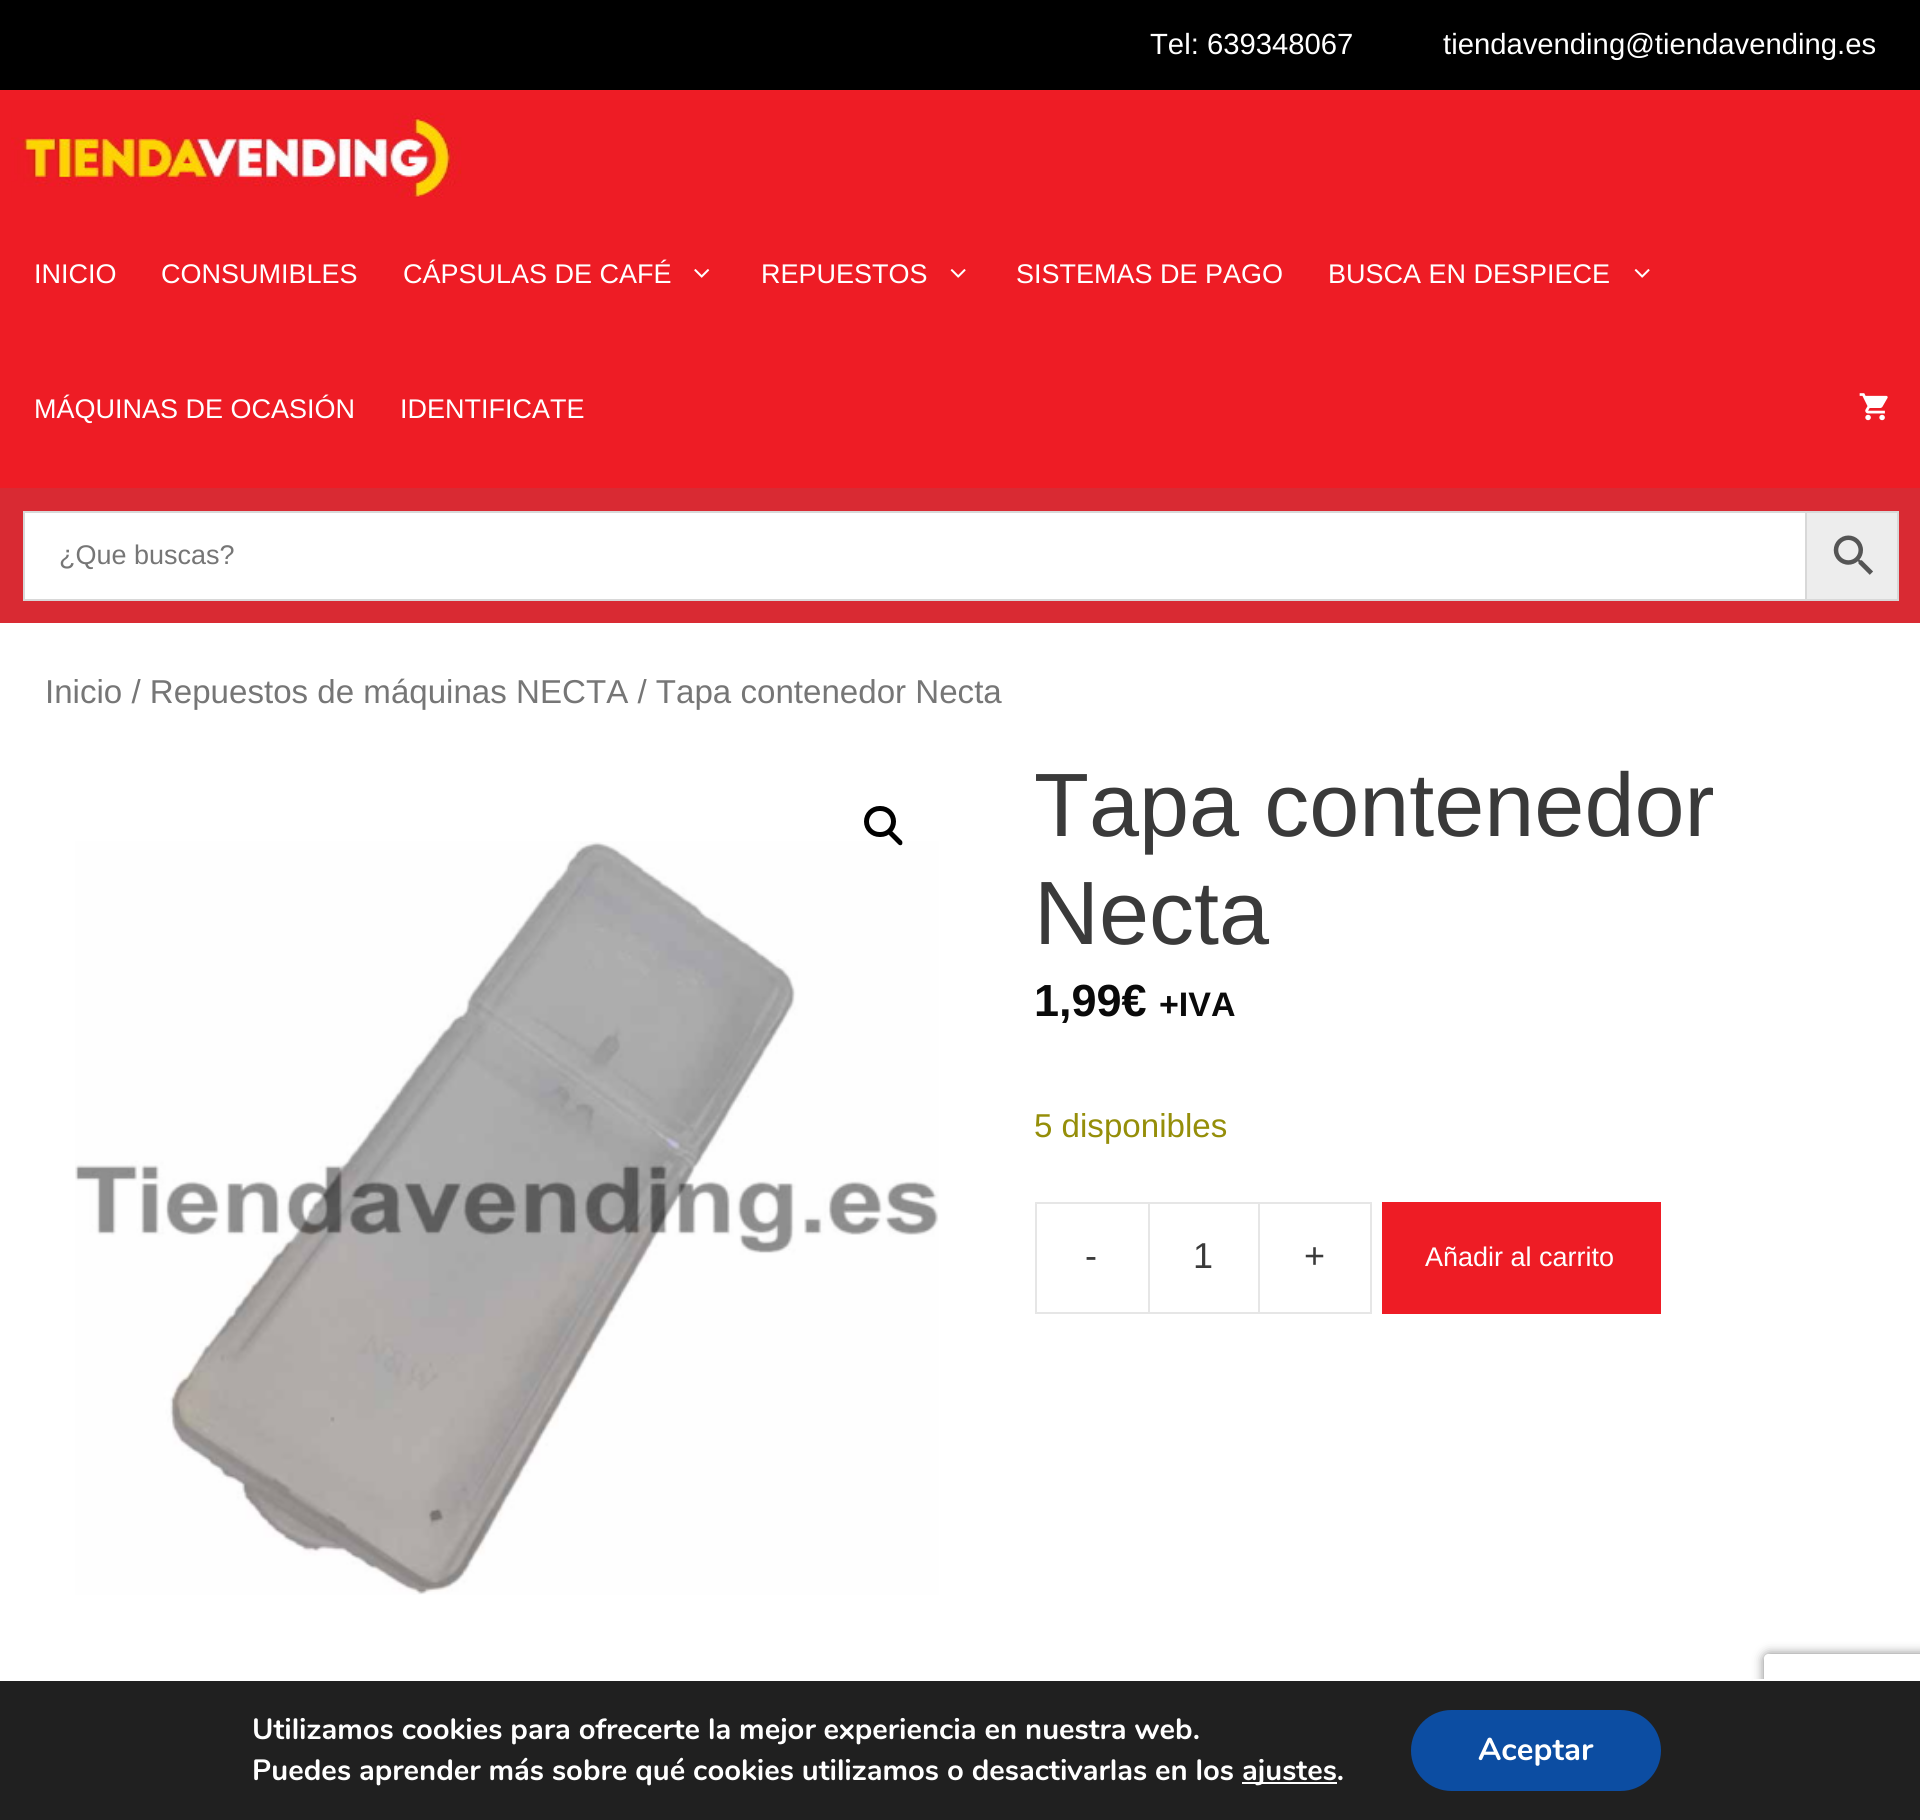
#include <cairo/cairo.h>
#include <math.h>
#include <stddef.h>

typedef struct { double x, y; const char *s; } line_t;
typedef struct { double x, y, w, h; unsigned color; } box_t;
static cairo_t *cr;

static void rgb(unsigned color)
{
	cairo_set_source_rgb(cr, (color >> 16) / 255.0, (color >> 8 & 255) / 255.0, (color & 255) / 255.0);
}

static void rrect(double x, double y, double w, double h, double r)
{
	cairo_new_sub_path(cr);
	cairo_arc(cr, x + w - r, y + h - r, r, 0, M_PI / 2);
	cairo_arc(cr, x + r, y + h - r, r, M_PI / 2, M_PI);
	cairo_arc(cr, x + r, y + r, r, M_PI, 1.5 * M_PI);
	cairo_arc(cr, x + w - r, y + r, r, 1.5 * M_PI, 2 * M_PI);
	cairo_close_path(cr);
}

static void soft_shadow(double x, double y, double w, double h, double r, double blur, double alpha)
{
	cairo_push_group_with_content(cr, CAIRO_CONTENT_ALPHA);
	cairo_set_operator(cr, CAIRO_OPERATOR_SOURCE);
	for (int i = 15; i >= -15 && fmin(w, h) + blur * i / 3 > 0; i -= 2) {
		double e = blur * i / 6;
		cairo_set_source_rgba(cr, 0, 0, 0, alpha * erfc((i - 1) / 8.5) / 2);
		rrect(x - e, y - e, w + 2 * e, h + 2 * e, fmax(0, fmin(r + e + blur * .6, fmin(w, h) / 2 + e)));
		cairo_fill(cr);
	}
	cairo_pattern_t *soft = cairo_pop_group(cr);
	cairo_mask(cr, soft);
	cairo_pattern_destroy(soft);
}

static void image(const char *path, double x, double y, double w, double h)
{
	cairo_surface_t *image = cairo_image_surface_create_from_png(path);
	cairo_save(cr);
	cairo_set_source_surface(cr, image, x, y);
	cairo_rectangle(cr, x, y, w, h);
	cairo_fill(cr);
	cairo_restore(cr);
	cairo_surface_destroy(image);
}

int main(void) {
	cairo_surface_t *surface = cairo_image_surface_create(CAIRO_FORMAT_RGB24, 1920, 1820);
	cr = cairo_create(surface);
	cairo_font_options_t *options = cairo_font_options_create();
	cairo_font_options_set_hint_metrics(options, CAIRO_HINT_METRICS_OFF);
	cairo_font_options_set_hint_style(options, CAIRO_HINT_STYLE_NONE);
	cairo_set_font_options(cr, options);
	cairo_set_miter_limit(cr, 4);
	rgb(0xffffff);
	cairo_paint(cr);
	rgb(0x000000);
	cairo_rectangle(cr, 0, 0, 1920, 90);
	cairo_fill(cr);
	rgb(0xee1c25);
	cairo_rectangle(cr, 0, 90, 1920, 398);
	cairo_fill(cr);
	image("img/1.png", 11, 113, 451, 85);
	image("img/2.png", 694, 269, 16, 9);
	image("img/3.png", 950, 269, 16, 9);
	image("img/3.png", 1634, 269, 16, 9);
	image("img/4.png", 1859, 393, 29, 28);
	rgb(0xd92a33);
	cairo_rectangle(cr, 0, 488, 1920, 135);
	cairo_fill(cr);
	rgb(0xffffff);
	cairo_rectangle(cr, 25, 513, 1780, 86);
	cairo_fill(cr);
	rgb(0xededed);
	cairo_rectangle(cr, 1806, 512, 92, 88);
	cairo_fill_preserve(cr);
	rgb(0xd8d8d8);
	cairo_stroke(cr);
	cairo_rectangle(cr, 24, 512, 1782, 88);
	cairo_stroke(cr);
	image("img/5.png", 1833, 535, 40, 40);
	rrect(866.5, 808.5, 27, 26, 13);
	rgb(0x000000);
	cairo_set_line_width(cr, 5);
	cairo_stroke(cr);
	image("img/6.png", 75, 841, 864, 754);
	cairo_new_path(cr);
	cairo_move_to(cr, 889, 831.5);
	cairo_curve_to(cr, 890, 831, 891.5, 831, 892.5, 831.5);
	cairo_line_to(cr, 902, 841);
	cairo_curve_to(cr, 902.5, 842, 902.5, 843.5, 902, 844.5);
	cairo_curve_to(cr, 901, 845.5, 899.5, 845.5, 898.5, 844.5);
	cairo_line_to(cr, 889, 835);
	cairo_curve_to(cr, 888.5, 834, 888.5, 832.5, 889, 831.5);
	cairo_close_path(cr);
	cairo_fill(cr);
	rgb(0xe6e6e6);
	cairo_new_path(cr);
	cairo_move_to(cr, 1035, 1202);
	cairo_line_to(cr, 1148, 1202);
	cairo_line_to(cr, 1148, 1204);
	cairo_line_to(cr, 1037, 1204);
	cairo_close_path(cr);
	cairo_fill(cr);
	cairo_new_path(cr);
	cairo_move_to(cr, 1148, 1314);
	cairo_line_to(cr, 1035, 1314);
	cairo_line_to(cr, 1037, 1312);
	cairo_line_to(cr, 1148, 1312);
	cairo_close_path(cr);
	cairo_fill(cr);
	cairo_set_source_rgba(cr, 0, 0, 0, 0.1);
	cairo_new_path(cr);
	cairo_move_to(cr, 1035, 1314);
	cairo_line_to(cr, 1035, 1202);
	cairo_line_to(cr, 1037, 1204);
	cairo_line_to(cr, 1037, 1312);
	cairo_close_path(cr);
	cairo_fill(cr);
	cairo_rectangle(cr, 1149, 1203, 110, 110);
	rgb(0xe6e6e6);
	cairo_set_line_width(cr, 2);
	cairo_stroke(cr);
	cairo_new_path(cr);
	cairo_move_to(cr, 1260, 1202);
	cairo_line_to(cr, 1372, 1202);
	cairo_line_to(cr, 1370, 1204);
	cairo_line_to(cr, 1260, 1204);
	cairo_close_path(cr);
	cairo_fill(cr);
	cairo_set_source_rgba(cr, 0, 0, 0, 0.1);
	cairo_new_path(cr);
	cairo_move_to(cr, 1372, 1202);
	cairo_line_to(cr, 1372, 1314);
	cairo_line_to(cr, 1370, 1312);
	cairo_line_to(cr, 1370, 1204);
	cairo_close_path(cr);
	cairo_fill(cr);
	cairo_new_path(cr);
	cairo_move_to(cr, 1372, 1314);
	cairo_line_to(cr, 1260, 1314);
	cairo_line_to(cr, 1260, 1312);
	cairo_line_to(cr, 1370, 1312);
	cairo_close_path(cr);
	cairo_fill(cr);
	rgb(0xee1c25);
	cairo_rectangle(cr, 1382, 1202, 279, 112);
	cairo_fill(cr);
	cairo_save(cr);
	cairo_set_fill_rule(cr, CAIRO_FILL_RULE_EVEN_ODD);
	cairo_new_path(cr);
	cairo_move_to(cr, 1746, 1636);
	cairo_line_to(cr, 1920, 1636);
	cairo_line_to(cr, 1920, 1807);
	cairo_line_to(cr, 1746, 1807);
	cairo_close_path(cr);
	cairo_move_to(cr, 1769, 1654);
	cairo_line_to(cr, 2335, 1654);
	cairo_curve_to(cr, 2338, 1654, 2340, 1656, 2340, 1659);
	cairo_line_to(cr, 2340, 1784);
	cairo_curve_to(cr, 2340, 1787, 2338, 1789, 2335, 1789);
	cairo_line_to(cr, 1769, 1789);
	cairo_curve_to(cr, 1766, 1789, 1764, 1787, 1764, 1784);
	cairo_line_to(cr, 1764, 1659);
	cairo_curve_to(cr, 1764, 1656, 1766, 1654, 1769, 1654);
	cairo_close_path(cr);
	cairo_clip(cr);
	rgb(0x808080);
	soft_shadow(1764, 1654, 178, 135, 5, 5.5, 1);
	cairo_restore(cr);
	{
		static const box_t items[] = {
			{0, 1681, 1920, 139, 0x202020},
			{1753, 1679, 11, 2, 0xffffff},
			{1242, 1782, 95, 2, 0xffffff},
		};
		for (size_t i = 0; i < sizeof items / sizeof *items; i++) {
			rgb(items[i].color);
			cairo_rectangle(cr, items[i].x, items[i].y, items[i].w, items[i].h);
			cairo_fill(cr);
		}
	}
	rgb(0x0c4da2);
	rrect(1411, 1710, 250, 81, 40.5);
	cairo_fill(cr);
	cairo_select_font_face(cr, "Liberation Sans", CAIRO_FONT_SLANT_NORMAL, CAIRO_FONT_WEIGHT_NORMAL);
	cairo_set_font_size(cr, 29.25);
	rgb(0xffffff);
	cairo_move_to(cr, 1150, 54);
	cairo_show_text(cr, "Tel: 639348067");
	cairo_move_to(cr, 1443, 54);
	cairo_show_text(cr, "tiendavending@tiendavending.es");
	cairo_set_font_size(cr, 27);
	{
		static const line_t items[] = {
			{34, 283, "INICIO"},
			{161, 283, "CONSUMIBLES"},
			{403, 283, "CÁPSULAS DE CAFÉ"},
			{761, 283, "REPUESTOS"},
			{1016, 283, "SISTEMAS DE PAGO"},
			{1328, 283, "BUSCA EN DESPIECE"},
			{34, 418, "MÁQUINAS DE OCASIÓN"},
			{400, 418, "IDENTIFICATE"},
		};
		for (size_t i = 0; i < sizeof items / sizeof *items; i++) {
			cairo_move_to(cr, items[i].x, items[i].y);
			cairo_show_text(cr, items[i].s);
		}
	}
	rgb(0x767676);
	cairo_move_to(cr, 59, 564);
	cairo_show_text(cr, "¿Que buscas?");
	cairo_set_font_size(cr, 33.1);
	cairo_move_to(cr, 45, 703);
	cairo_show_text(cr, "Inicio / Repuestos de máquinas NECTA / Tapa contenedor Necta");
	cairo_set_font_size(cr, 90);
	rgb(0x3a3a3a);
	cairo_move_to(cr, 1034, 836);
	cairo_show_text(cr, "Tapa contenedor");
	cairo_move_to(cr, 1034, 944);
	cairo_show_text(cr, "Necta");
	cairo_select_font_face(cr, "Liberation Sans", CAIRO_FONT_SLANT_NORMAL, CAIRO_FONT_WEIGHT_BOLD);
	cairo_set_font_size(cr, 45);
	rgb(0x0a0a0a);
	cairo_move_to(cr, 1034, 1016);
	cairo_show_text(cr, "1,99€");
	cairo_set_font_size(cr, 34);
	cairo_move_to(cr, 1159, 1016);
	cairo_show_text(cr, "+IVA");
	cairo_select_font_face(cr, "Liberation Sans", CAIRO_FONT_SLANT_NORMAL, CAIRO_FONT_WEIGHT_NORMAL);
	cairo_set_font_size(cr, 33.1);
	rgb(0x958e09);
	cairo_move_to(cr, 1034, 1137);
	cairo_show_text(cr, "5 disponibles");
	cairo_set_font_size(cr, 36);
	rgb(0x3a3a3a);
	{
		static const line_t items[] = {
			{1085, 1268, "-"},
			{1193, 1268, "1"},
			{1304, 1268, "+"},
		};
		for (size_t i = 0; i < sizeof items / sizeof *items; i++) {
			cairo_move_to(cr, items[i].x, items[i].y);
			cairo_show_text(cr, items[i].s);
		}
	}
	cairo_set_font_size(cr, 27);
	rgb(0xffffff);
	cairo_move_to(cr, 1425, 1266);
	cairo_show_text(cr, "Añadir al carrito");
	cairo_select_font_face(cr, "Nunito", CAIRO_FONT_SLANT_NORMAL, CAIRO_FONT_WEIGHT_BOLD);
	cairo_set_font_size(cr, 29.25);
	{
		static const line_t items[] = {
			{252, 1739, "Utilizamos cookies para ofrecerte la mejor experiencia en nuestra web."},
			{252, 1780, "Puedes aprender más sobre qué cookies utilizamos o desactivarlas en los"},
			{1242, 1780, "ajustes."},
		};
		for (size_t i = 0; i < sizeof items / sizeof *items; i++) {
			cairo_move_to(cr, items[i].x, items[i].y);
			cairo_show_text(cr, items[i].s);
		}
	}
	cairo_set_font_size(cr, 31.5);
	cairo_move_to(cr, 1478, 1760);
	cairo_show_text(cr, "Aceptar");
	cairo_surface_write_to_png(surface, "page.png");
	cairo_font_options_destroy(options);
	cairo_destroy(cr);
	cairo_surface_destroy(surface);
	return 0;
}
